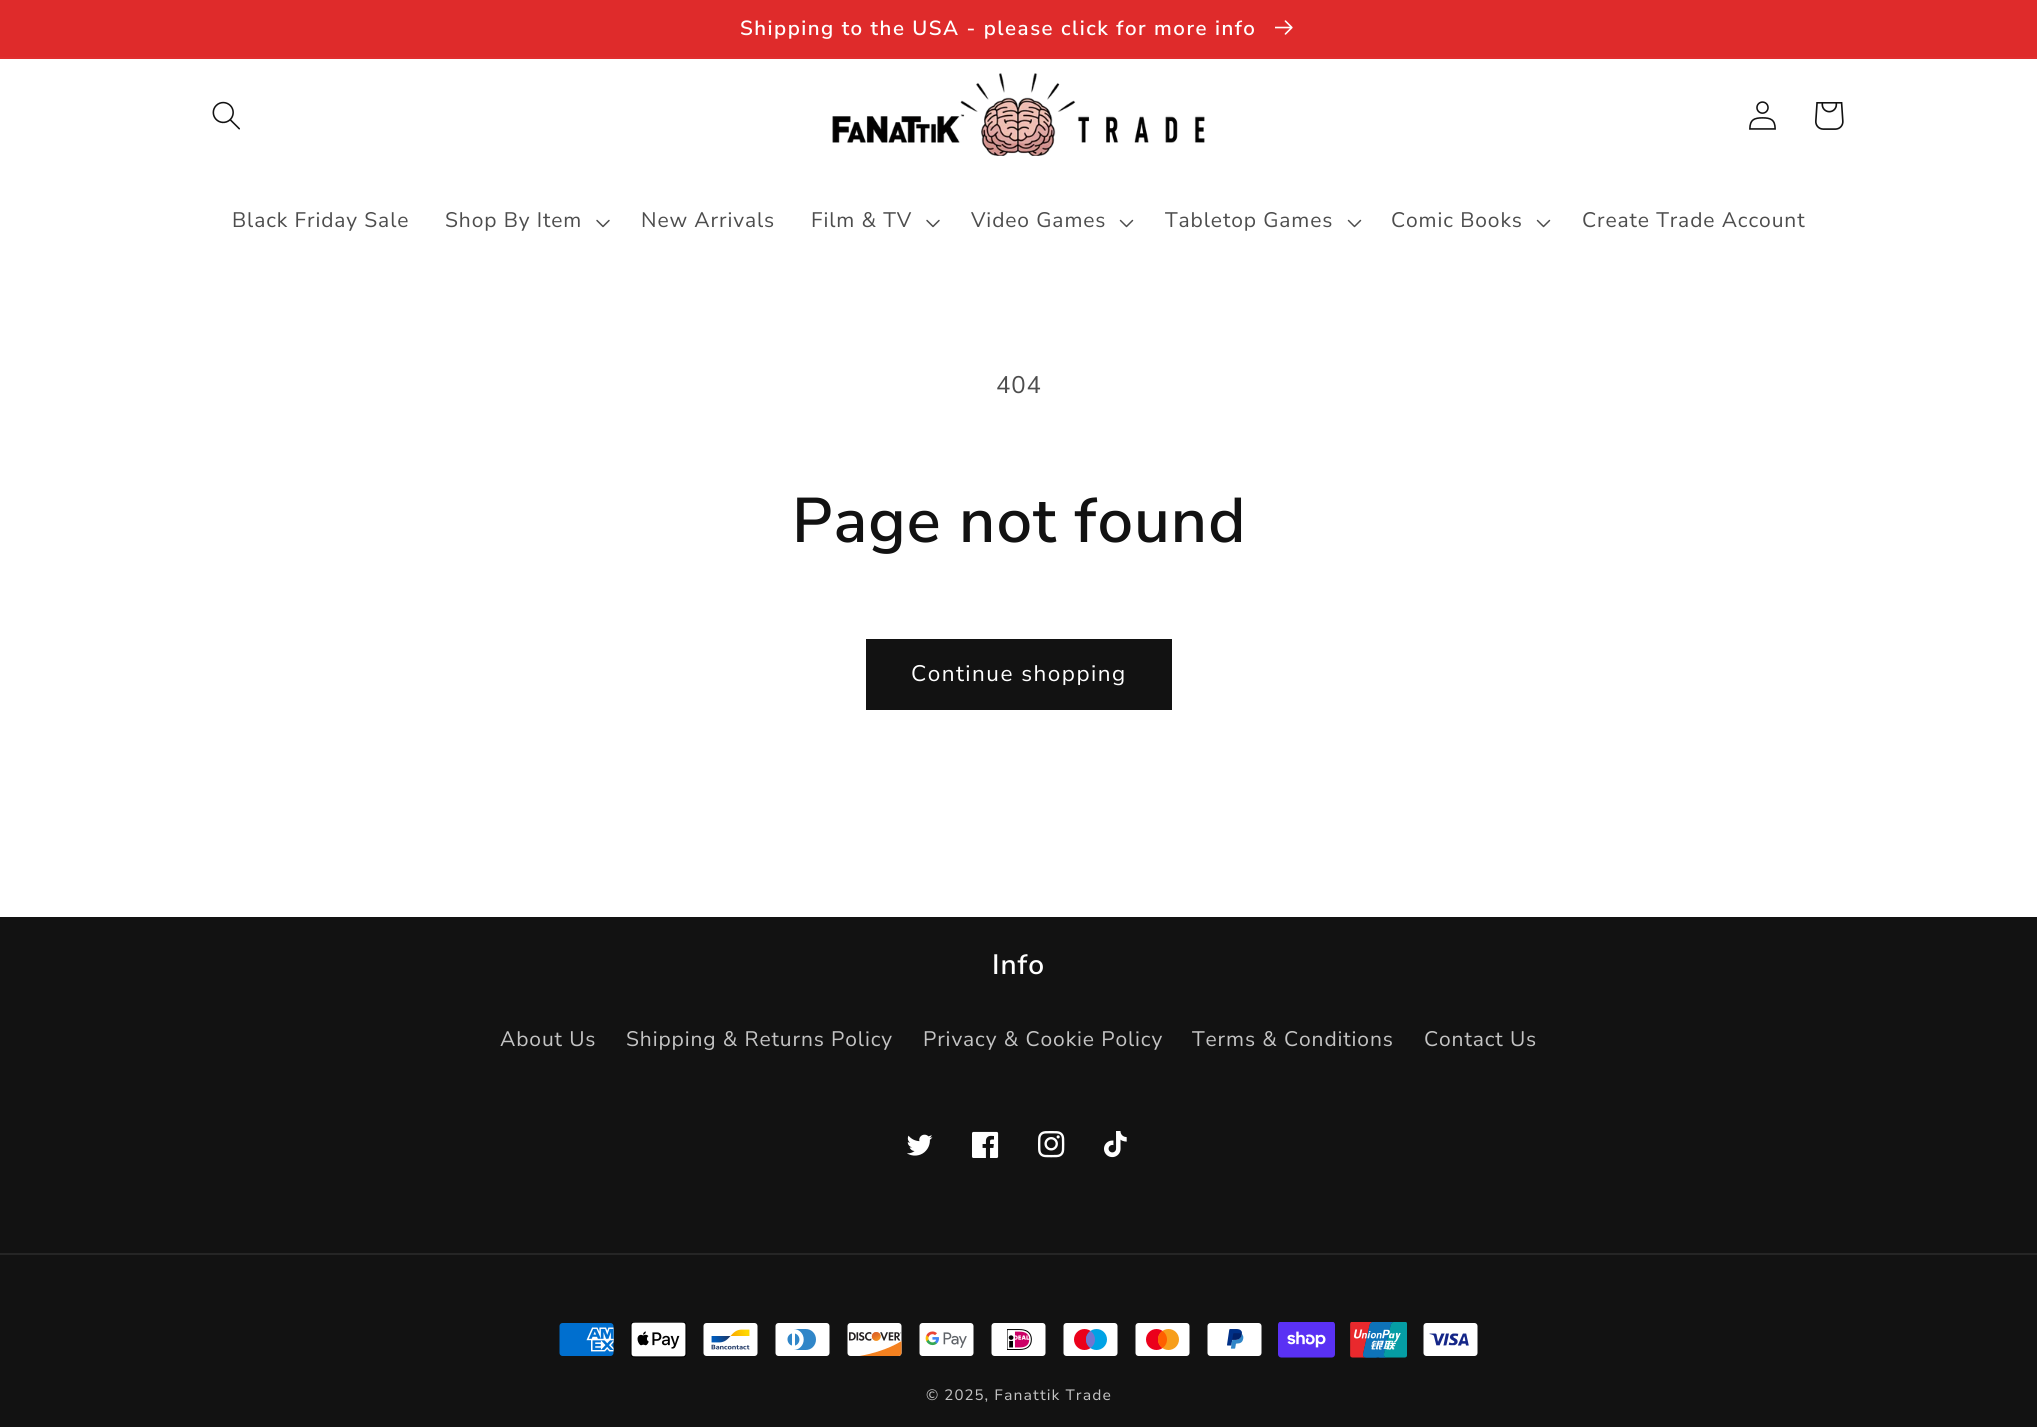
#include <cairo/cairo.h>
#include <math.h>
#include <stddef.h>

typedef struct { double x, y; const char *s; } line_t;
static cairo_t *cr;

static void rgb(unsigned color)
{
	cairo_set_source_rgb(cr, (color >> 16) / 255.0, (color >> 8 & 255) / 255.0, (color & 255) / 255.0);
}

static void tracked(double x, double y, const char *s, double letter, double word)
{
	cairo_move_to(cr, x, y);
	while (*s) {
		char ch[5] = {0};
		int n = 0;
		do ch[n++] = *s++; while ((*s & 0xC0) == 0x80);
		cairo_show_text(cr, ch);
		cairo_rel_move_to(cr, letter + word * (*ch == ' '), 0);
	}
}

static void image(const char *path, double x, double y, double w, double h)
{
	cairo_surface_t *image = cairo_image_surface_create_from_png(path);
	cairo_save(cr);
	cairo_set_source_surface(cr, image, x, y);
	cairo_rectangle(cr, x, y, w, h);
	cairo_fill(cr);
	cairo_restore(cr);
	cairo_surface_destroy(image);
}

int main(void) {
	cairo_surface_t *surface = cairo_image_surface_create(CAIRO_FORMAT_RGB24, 2037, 1427);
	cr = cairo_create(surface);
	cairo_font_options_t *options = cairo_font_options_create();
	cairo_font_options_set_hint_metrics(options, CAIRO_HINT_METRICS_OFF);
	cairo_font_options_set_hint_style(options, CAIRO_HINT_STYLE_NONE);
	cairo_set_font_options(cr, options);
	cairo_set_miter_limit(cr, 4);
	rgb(0xffffff);
	cairo_paint(cr);
	rgb(0xe02f2f);
	cairo_rectangle(cr, 0, 57, 2037, 2);
	cairo_fill(cr);
	rgb(0xdf2b2b);
	cairo_rectangle(cr, 0, 0, 2037, 57);
	cairo_fill(cr);
	image("img/1.png", 1275, 20, 18, 15);
	image("img/2.png", 212, 101, 28, 29);
	image("img/3.png", 832, 73, 373, 83);
	image("img/4.png", 1749, 101, 27, 29);
	image("img/5.png", 1815, 102, 29, 28);
	image("img/6.png", 596, 219, 14, 9);
	image("img/6.png", 926, 219, 14, 9);
	image("img/7.png", 1119, 219, 15, 9);
	image("img/7.png", 1347, 219, 15, 9);
	image("img/7.png", 1536, 219, 15, 9);
	rgb(0x121212);
	cairo_rectangle(cr, 866, 639, 306, 71);
	cairo_fill(cr);
	cairo_rectangle(cr, 0, 917, 2037, 510);
	cairo_fill(cr);
	image("img/8.png", 907, 1134, 26, 22);
	image("img/9.png", 972, 1131, 27, 27);
	image("img/10.png", 1038, 1131, 27, 27);
	image("img/11.png", 1104, 1131, 23, 27);
	rgb(0x252525);
	cairo_rectangle(cr, 0, 1253, 2037, 2);
	cairo_fill(cr);
	image("img/12.png", 559, 1323, 55, 33);
	image("img/13.png", 630, 1322, 57, 36);
	image("img/14.png", 703, 1323, 55, 33);
	image("img/15.png", 775, 1323, 55, 33);
	image("img/16.png", 847, 1323, 55, 33);
	image("img/17.png", 919, 1323, 55, 33);
	image("img/18.png", 991, 1323, 55, 33);
	image("img/19.png", 1063, 1323, 55, 33);
	image("img/20.png", 1135, 1323, 55, 33);
	image("img/21.png", 1207, 1323, 55, 33);
	image("img/22.png", 1278, 1322, 57, 36);
	image("img/23.png", 1350, 1322, 57, 36);
	image("img/24.png", 1423, 1323, 55, 33);
	cairo_select_font_face(cr, "Nunito Sans SemiBold", CAIRO_FONT_SLANT_NORMAL, CAIRO_FONT_WEIGHT_NORMAL);
	cairo_set_font_size(cr, 20.5);
	rgb(0xffffff);
	tracked(740, 35, "Shipping to the USA - please click for more info", 1.5, 0);
	cairo_select_font_face(cr, "Nunito Sans", CAIRO_FONT_SLANT_NORMAL, CAIRO_FONT_WEIGHT_NORMAL);
	cairo_set_font_size(cr, 21);
	rgb(0x4d4d4d);
	{
		static const line_t items[] = {
			{232, 227, "Black Friday Sale"},
			{445, 227, "Shop By Item"},
			{641, 227, "New Arrivals"},
			{811, 227, "Film & TV"},
			{971, 227, "Video Games"},
			{1165, 227, "Tabletop Games"},
			{1391, 227, "Comic Books"},
			{1582, 227, "Create Trade Account"},
		};
		for (size_t i = 0; i < sizeof items / sizeof *items; i++) {
			tracked(items[i].x, items[i].y, items[i].s, 0.9, 0);
		}
	}
	cairo_set_font_size(cr, 24);
	tracked(996, 393, "404", 0.9, 0);
	cairo_select_font_face(cr, "Nunito Sans SemiBold", CAIRO_FONT_SLANT_NORMAL, CAIRO_FONT_WEIGHT_NORMAL);
	cairo_set_font_size(cr, 63);
	rgb(0x121212);
	tracked(792, 542, "Page not found", 1, 0);
	cairo_select_font_face(cr, "Nunito Sans", CAIRO_FONT_SLANT_NORMAL, CAIRO_FONT_WEIGHT_NORMAL);
	cairo_set_font_size(cr, 22.5);
	rgb(0xffffff);
	tracked(911, 681, "Continue shopping", 1.5, 0);
	cairo_select_font_face(cr, "Nunito Sans SemiBold", CAIRO_FONT_SLANT_NORMAL, CAIRO_FONT_WEIGHT_NORMAL);
	cairo_set_font_size(cr, 28);
	tracked(992, 974, "Info", 1, 0);
	cairo_select_font_face(cr, "Nunito Sans", CAIRO_FONT_SLANT_NORMAL, CAIRO_FONT_WEIGHT_NORMAL);
	cairo_set_font_size(cr, 21);
	rgb(0xc4c4c4);
	{
		static const line_t items[] = {
			{500, 1046, "About Us"},
			{626, 1046, "Shipping & Returns Policy"},
			{923, 1046, "Privacy & Cookie Policy"},
			{1192, 1046, "Terms & Conditions"},
			{1424, 1046, "Contact Us"},
		};
		for (size_t i = 0; i < sizeof items / sizeof *items; i++) {
			tracked(items[i].x, items[i].y, items[i].s, 0.9, 0);
		}
	}
	cairo_select_font_face(cr, "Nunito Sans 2", CAIRO_FONT_SLANT_NORMAL, CAIRO_FONT_WEIGHT_NORMAL);
	cairo_set_font_size(cr, 15);
	tracked(926, 1400, "© 2025, Fanattik Trade", 1.05, 0);
	cairo_surface_write_to_png(surface, "page.png");
	cairo_font_options_destroy(options);
	cairo_destroy(cr);
	cairo_surface_destroy(surface);
	return 0;
}
